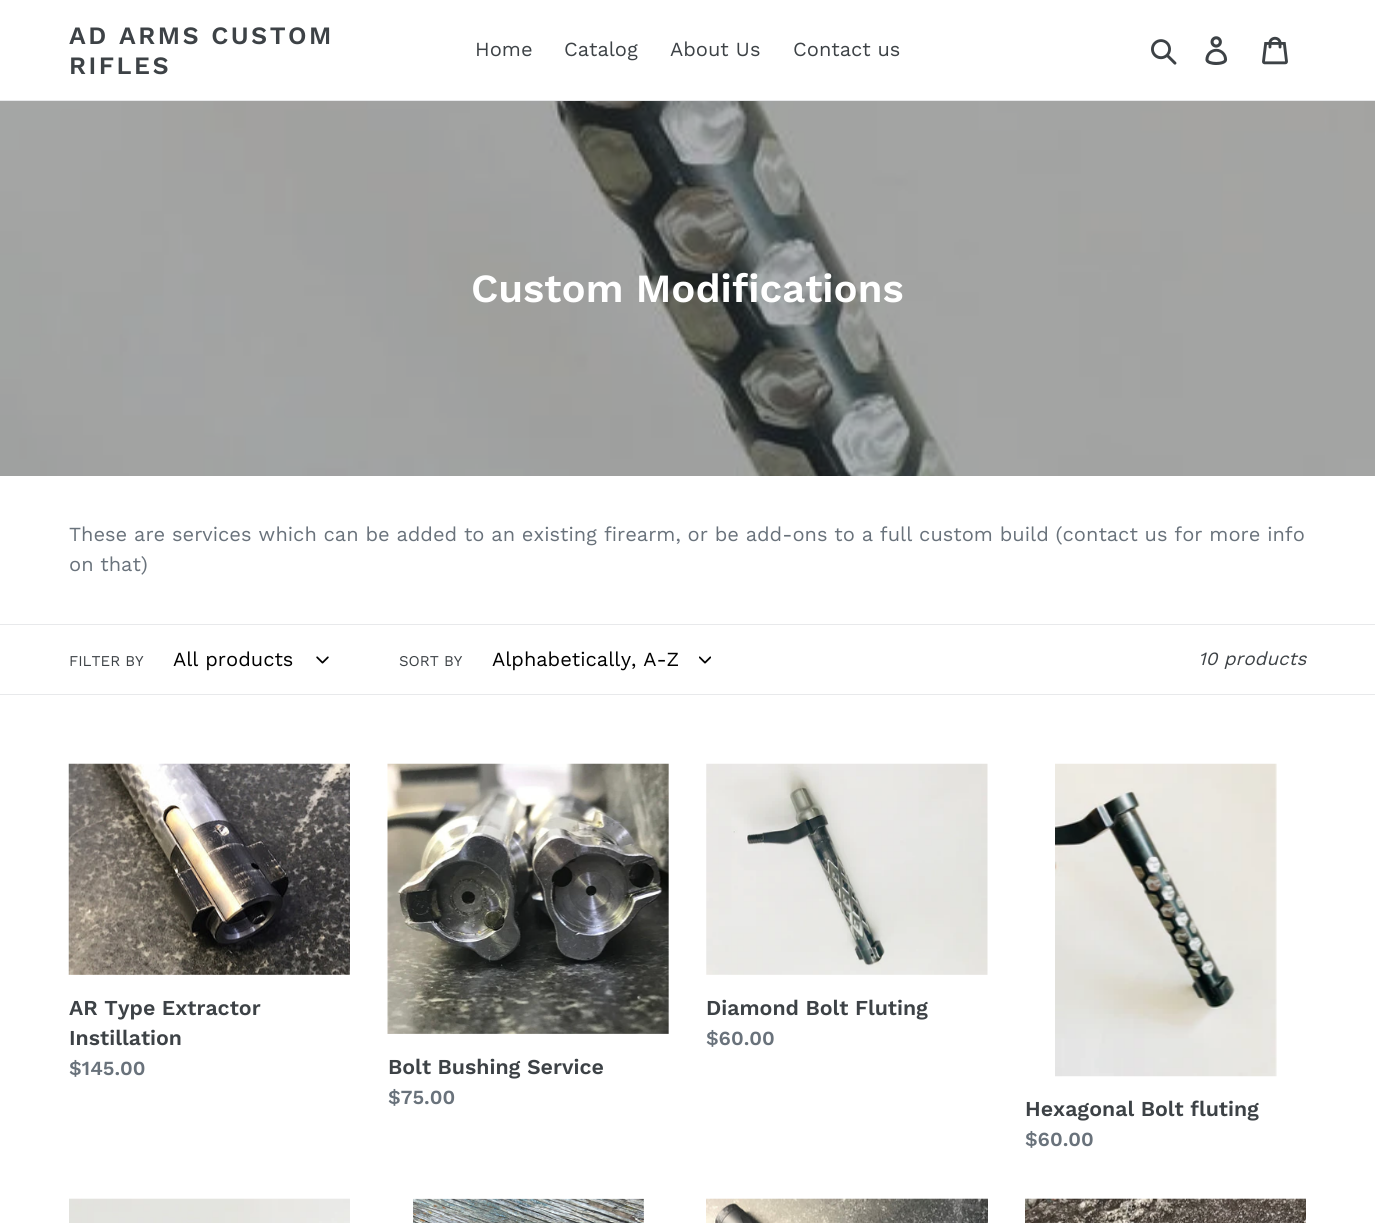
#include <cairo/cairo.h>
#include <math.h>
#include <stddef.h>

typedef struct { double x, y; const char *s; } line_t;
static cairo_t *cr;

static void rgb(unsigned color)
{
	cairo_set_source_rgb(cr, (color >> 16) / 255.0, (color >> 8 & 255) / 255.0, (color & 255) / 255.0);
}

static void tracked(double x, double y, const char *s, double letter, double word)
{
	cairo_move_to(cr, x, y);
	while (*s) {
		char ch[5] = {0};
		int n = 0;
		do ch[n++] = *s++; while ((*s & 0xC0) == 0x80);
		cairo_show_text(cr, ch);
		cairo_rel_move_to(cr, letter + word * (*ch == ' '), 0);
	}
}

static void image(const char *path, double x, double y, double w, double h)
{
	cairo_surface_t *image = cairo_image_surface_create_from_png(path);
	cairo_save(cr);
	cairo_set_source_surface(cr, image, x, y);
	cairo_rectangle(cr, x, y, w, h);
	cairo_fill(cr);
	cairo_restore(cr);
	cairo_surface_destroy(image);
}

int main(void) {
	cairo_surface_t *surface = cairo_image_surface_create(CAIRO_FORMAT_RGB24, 1375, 1223);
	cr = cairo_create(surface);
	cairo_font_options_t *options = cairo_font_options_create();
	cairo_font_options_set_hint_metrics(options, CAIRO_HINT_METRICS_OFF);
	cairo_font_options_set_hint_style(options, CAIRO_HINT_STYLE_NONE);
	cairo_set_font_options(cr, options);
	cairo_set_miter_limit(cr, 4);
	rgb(0xffffff);
	cairo_paint(cr);
	rgb(0xe8e9eb);
	cairo_rectangle(cr, 0, 100, 1375, 1);
	cairo_fill(cr);
	image("img/1.png", 1151, 39, 26, 26);
	image("img/2.png", 1205, 36, 23, 29);
	image("img/3.png", 1262, 36, 26, 29);
	image("img/4.png", 0, 101, 1375, 375);
	cairo_rectangle(cr, 0, 624, 1375, 1);
	cairo_fill(cr);
	cairo_rectangle(cr, 0, 694, 1375, 1);
	cairo_fill(cr);
	image("img/5.png", 316, 656, 13, 8);
	image("img/6.png", 699, 656, 12, 8);
	image("img/7.png", 68, 763, 282, 212);
	image("img/8.png", 706, 763, 282, 212);
	image("img/9.png", 387, 763, 282, 271);
	image("img/10.png", 1055, 763, 222, 314);
	image("img/11.png", 69, 1198, 281, 25);
	image("img/12.png", 413, 1198, 231, 25);
	image("img/13.png", 706, 1198, 282, 25);
	image("img/14.png", 1025, 1198, 281, 25);
	cairo_select_font_face(cr, "Work Sans SemiBold", CAIRO_FONT_SLANT_NORMAL, CAIRO_FONT_WEIGHT_NORMAL);
	cairo_set_font_size(cr, 25);
	rgb(0x3d4246);
	tracked(69, 44, "AD ARMS CUSTOM", 2.5, 0);
	tracked(69, 74, "RIFLES", 2.5, 0);
	cairo_select_font_face(cr, "Work Sans", CAIRO_FONT_SLANT_NORMAL, CAIRO_FONT_WEIGHT_NORMAL);
	cairo_set_font_size(cr, 20);
	{
		static const line_t items[] = {
			{475, 56, "Home"},
			{564, 56, "Catalog"},
			{670, 56, "About Us"},
			{793, 56, "Contact us"},
		};
		for (size_t i = 0; i < sizeof items / sizeof *items; i++) {
			cairo_move_to(cr, items[i].x, items[i].y);
			cairo_show_text(cr, items[i].s);
		}
	}
	cairo_select_font_face(cr, "Work Sans SemiBold", CAIRO_FONT_SLANT_NORMAL, CAIRO_FONT_WEIGHT_NORMAL);
	cairo_set_font_size(cr, 40);
	rgb(0xffffff);
	cairo_move_to(cr, 471, 302);
	cairo_show_text(cr, "Custom Modifications");
	cairo_select_font_face(cr, "Work Sans", CAIRO_FONT_SLANT_NORMAL, CAIRO_FONT_WEIGHT_NORMAL);
	cairo_set_font_size(cr, 20);
	rgb(0x69727b);
	cairo_move_to(cr, 69, 541);
	cairo_show_text(cr, "These are services which can be added to an existing firearm, or be add-ons to a full custom build (contact us for more info");
	cairo_move_to(cr, 69, 571);
	cairo_show_text(cr, "on that)");
	cairo_set_font_size(cr, 15);
	rgb(0x3d4246);
	cairo_move_to(cr, 69, 666);
	cairo_show_text(cr, "FILTER BY");
	cairo_set_font_size(cr, 20);
	rgb(0x000000);
	cairo_move_to(cr, 173, 666);
	cairo_show_text(cr, "All products");
	cairo_set_font_size(cr, 15);
	rgb(0x3d4246);
	cairo_move_to(cr, 399, 666);
	cairo_show_text(cr, "SORT BY");
	cairo_set_font_size(cr, 20);
	rgb(0x000000);
	cairo_move_to(cr, 492, 666);
	cairo_show_text(cr, "Alphabetically, A-Z");
	cairo_select_font_face(cr, "Work Sans", CAIRO_FONT_SLANT_ITALIC, CAIRO_FONT_WEIGHT_NORMAL);
	cairo_set_font_size(cr, 18.75);
	rgb(0x3d4246);
	cairo_move_to(cr, 1198, 665);
	cairo_show_text(cr, "10 products");
	cairo_select_font_face(cr, "Work Sans SemiBold", CAIRO_FONT_SLANT_NORMAL, CAIRO_FONT_WEIGHT_NORMAL);
	cairo_set_font_size(cr, 21.25);
	cairo_move_to(cr, 69, 1015);
	cairo_show_text(cr, "AR Type Extractor");
	cairo_move_to(cr, 69, 1045);
	cairo_show_text(cr, "Instillation");
	cairo_set_font_size(cr, 20);
	rgb(0x69727b);
	cairo_move_to(cr, 69, 1075);
	cairo_show_text(cr, "$145.00");
	cairo_set_font_size(cr, 21.25);
	rgb(0x3d4246);
	cairo_move_to(cr, 706, 1015);
	cairo_show_text(cr, "Diamond Bolt Fluting");
	cairo_set_font_size(cr, 20);
	rgb(0x69727b);
	cairo_move_to(cr, 706, 1045);
	cairo_show_text(cr, "$60.00");
	cairo_set_font_size(cr, 21.25);
	rgb(0x3d4246);
	cairo_move_to(cr, 388, 1074);
	cairo_show_text(cr, "Bolt Bushing Service");
	cairo_set_font_size(cr, 20);
	rgb(0x69727b);
	cairo_move_to(cr, 388, 1104);
	cairo_show_text(cr, "$75.00");
	cairo_set_font_size(cr, 21.25);
	rgb(0x3d4246);
	cairo_move_to(cr, 1025, 1116);
	cairo_show_text(cr, "Hexagonal Bolt fluting");
	cairo_set_font_size(cr, 20);
	rgb(0x69727b);
	cairo_move_to(cr, 1025, 1146);
	cairo_show_text(cr, "$60.00");
	cairo_surface_write_to_png(surface, "page.png");
	cairo_font_options_destroy(options);
	cairo_destroy(cr);
	cairo_surface_destroy(surface);
	return 0;
}
